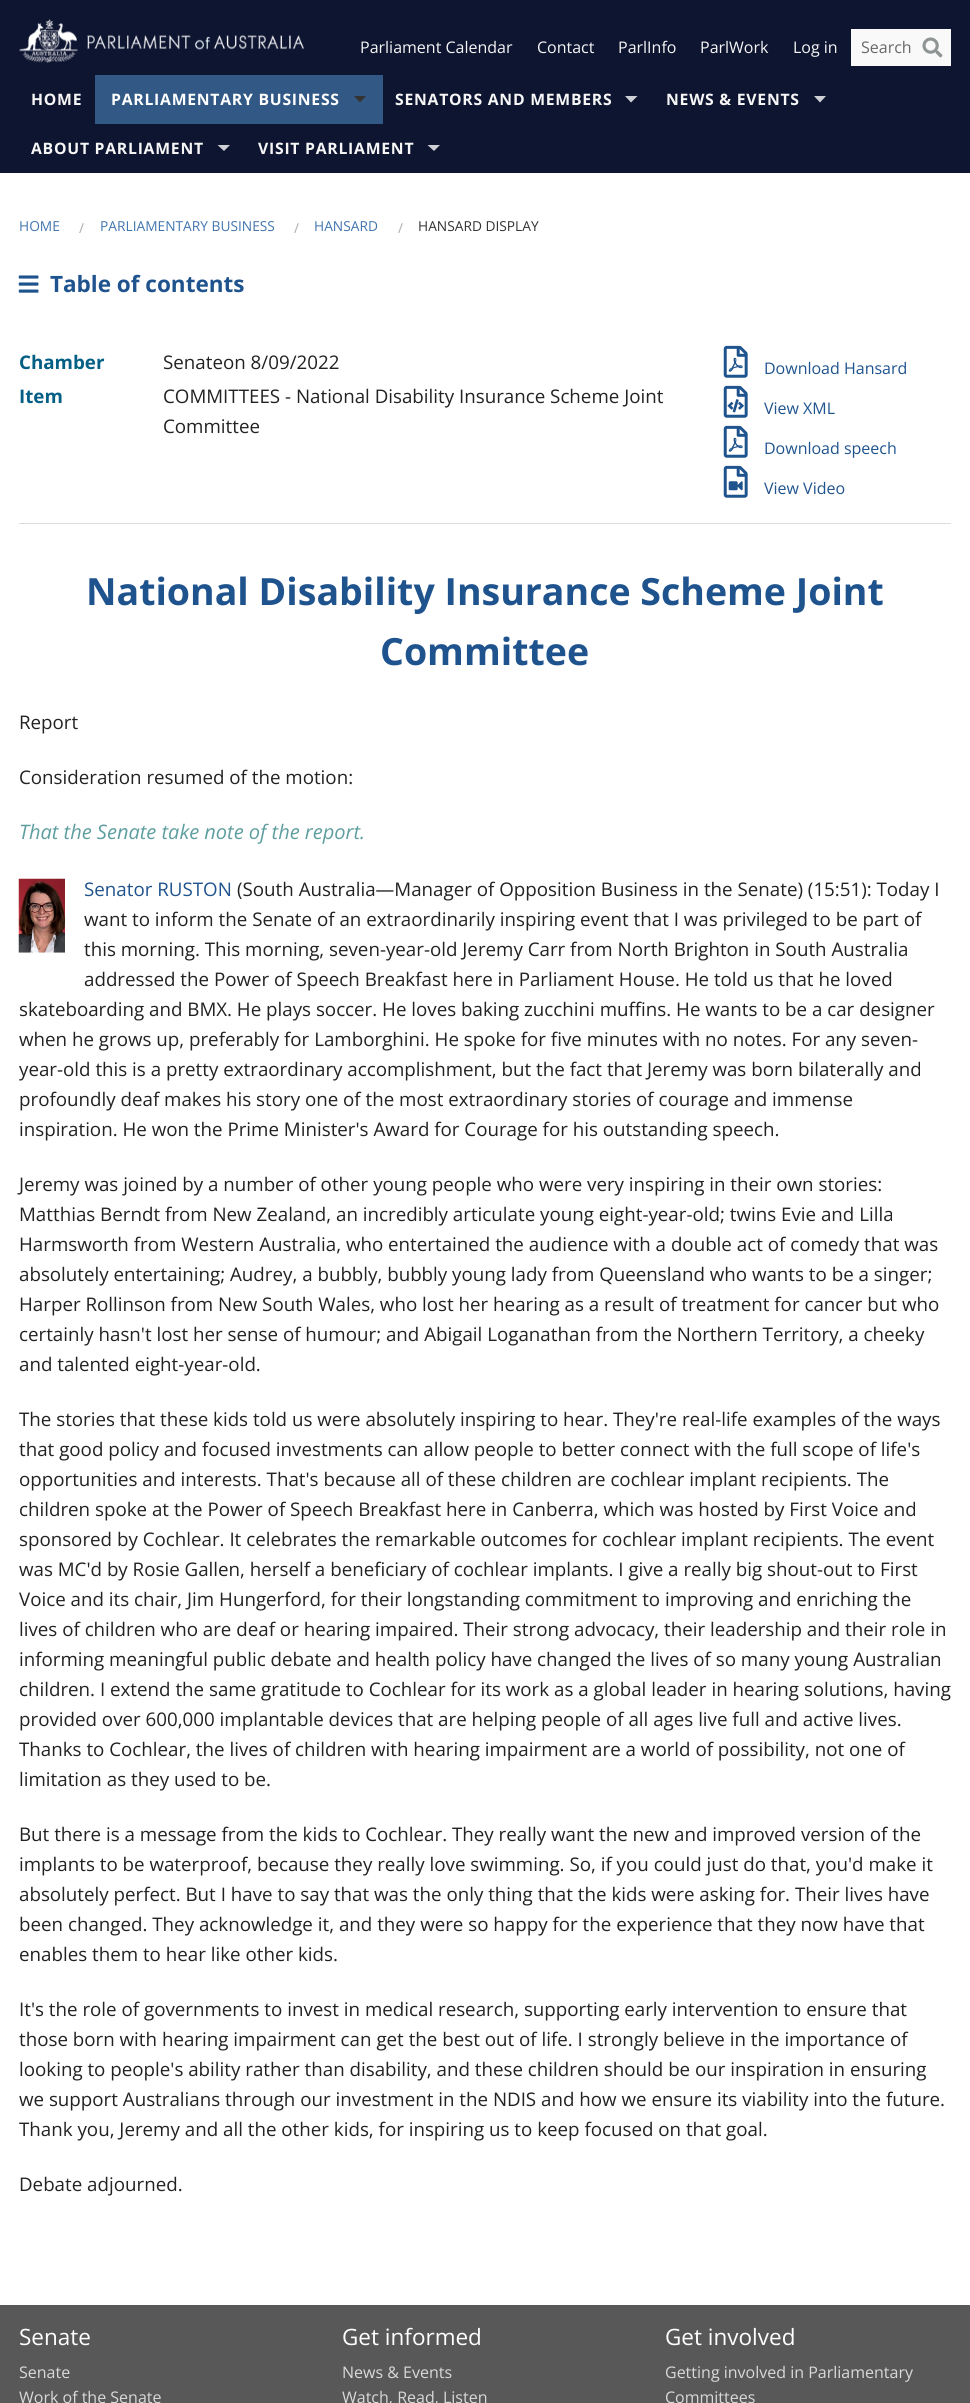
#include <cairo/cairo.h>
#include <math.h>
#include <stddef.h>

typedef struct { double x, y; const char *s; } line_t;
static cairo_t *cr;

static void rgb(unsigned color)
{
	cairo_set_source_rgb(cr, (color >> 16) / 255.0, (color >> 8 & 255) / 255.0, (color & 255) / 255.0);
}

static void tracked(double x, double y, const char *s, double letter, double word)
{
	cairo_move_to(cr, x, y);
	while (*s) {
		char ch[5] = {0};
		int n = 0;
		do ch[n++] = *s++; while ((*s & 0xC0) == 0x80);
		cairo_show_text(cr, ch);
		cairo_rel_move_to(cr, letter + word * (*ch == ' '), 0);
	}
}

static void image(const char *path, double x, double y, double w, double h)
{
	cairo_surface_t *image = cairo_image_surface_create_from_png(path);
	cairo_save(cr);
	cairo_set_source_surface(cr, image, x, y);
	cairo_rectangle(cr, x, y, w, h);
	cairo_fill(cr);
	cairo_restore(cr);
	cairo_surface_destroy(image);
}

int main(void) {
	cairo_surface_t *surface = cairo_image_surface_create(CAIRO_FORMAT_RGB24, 970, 2403);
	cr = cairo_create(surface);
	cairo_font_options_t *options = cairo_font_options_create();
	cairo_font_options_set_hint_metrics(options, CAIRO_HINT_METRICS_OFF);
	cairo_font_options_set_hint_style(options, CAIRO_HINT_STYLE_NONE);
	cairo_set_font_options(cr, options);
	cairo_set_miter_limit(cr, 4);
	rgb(0xffffff);
	cairo_paint(cr);
	rgb(0x0e1531);
	cairo_rectangle(cr, 0, 0, 970, 173);
	cairo_fill(cr);
	image("img/1.png", 19, 19, 286, 44);
	rgb(0xf9f9f9);
	cairo_rectangle(cr, 851, 29, 100, 37);
	cairo_fill(cr);
	image("img/2.png", 922, 37, 21, 21);
	rgb(0x325986);
	cairo_rectangle(cr, 95, 75, 288, 49);
	cairo_fill(cr);
	rgb(0x333333);
	cairo_new_path(cr);
	cairo_move_to(cr, 354, 96);
	cairo_line_to(cr, 366, 96);
	cairo_line_to(cr, 360, 102.5);
	cairo_close_path(cr);
	cairo_fill(cr);
	rgb(0xcfd0d6);
	cairo_new_path(cr);
	cairo_move_to(cr, 625, 96);
	cairo_line_to(cr, 637.5, 96);
	cairo_line_to(cr, 631, 102.5);
	cairo_close_path(cr);
	cairo_fill(cr);
	cairo_new_path(cr);
	cairo_move_to(cr, 814, 96);
	cairo_line_to(cr, 826, 96);
	cairo_line_to(cr, 820, 102.5);
	cairo_close_path(cr);
	cairo_fill(cr);
	cairo_new_path(cr);
	cairo_move_to(cr, 217.5, 145);
	cairo_line_to(cr, 230, 145);
	cairo_line_to(cr, 224, 151);
	cairo_close_path(cr);
	cairo_fill(cr);
	cairo_new_path(cr);
	cairo_move_to(cr, 427.5, 145);
	cairo_line_to(cr, 440, 145);
	cairo_line_to(cr, 434, 151);
	cairo_close_path(cr);
	cairo_fill(cr);
	image("img/3.png", 18, 275, 21, 18);
	image("img/4.png", 723, 345, 25, 33);
	image("img/5.png", 723, 385, 25, 33);
	image("img/4.png", 723, 425, 25, 33);
	image("img/6.png", 723, 465, 25, 33);
	rgb(0xdddddd);
	cairo_rectangle(cr, 19, 523, 932, 1);
	cairo_fill(cr);
	image("img/7.png", 18, 878, 47, 75);
	rgb(0x585858);
	cairo_rectangle(cr, 0, 2305, 970, 98);
	cairo_fill(cr);
	cairo_select_font_face(cr, "Open Sans", CAIRO_FONT_SLANT_NORMAL, CAIRO_FONT_WEIGHT_NORMAL);
	cairo_set_font_size(cr, 16);
	rgb(0xf6f6f6);
	{
		static const line_t items[] = {
			{360, 53, "Parliament Calendar"},
			{537, 53, "Contact"},
			{618, 53, "ParlInfo"},
			{700, 53, "ParlWork"},
			{793, 53, "Log in"},
		};
		for (size_t i = 0; i < sizeof items / sizeof *items; i++) {
			cairo_move_to(cr, items[i].x, items[i].y);
			cairo_show_text(cr, items[i].s);
		}
	}
	rgb(0x696969);
	cairo_move_to(cr, 861, 53);
	cairo_show_text(cr, "Search");
	cairo_select_font_face(cr, "Open Sans", CAIRO_FONT_SLANT_NORMAL, CAIRO_FONT_WEIGHT_BOLD);
	cairo_set_font_size(cr, 15.75);
	rgb(0xf6f6f6);
	tracked(31, 105, "HOME", 0.75, 0);
	rgb(0xffffff);
	tracked(111, 105, "PARLIAMENTARY BUSINESS", 0.75, 0);
	rgb(0xf6f6f6);
	{
		static const line_t items[] = {
			{395, 105, "SENATORS AND MEMBERS"},
			{666, 105, "NEWS & EVENTS"},
			{31, 154, "ABOUT PARLIAMENT"},
			{258, 154, "VISIT PARLIAMENT"},
		};
		for (size_t i = 0; i < sizeof items / sizeof *items; i++) {
			tracked(items[i].x, items[i].y, items[i].s, 0.75, 0);
		}
	}
	cairo_select_font_face(cr, "Open Sans", CAIRO_FONT_SLANT_NORMAL, CAIRO_FONT_WEIGHT_NORMAL);
	cairo_set_font_size(cr, 13.75);
	rgb(0x4275ae);
	cairo_move_to(cr, 19, 231);
	cairo_show_text(cr, "HOME");
	rgb(0xaaaaaa);
	cairo_move_to(cr, 79, 233);
	cairo_show_text(cr, "/");
	rgb(0x4275ae);
	cairo_move_to(cr, 100, 231);
	cairo_show_text(cr, "PARLIAMENTARY BUSINESS");
	rgb(0xaaaaaa);
	cairo_move_to(cr, 294, 233);
	cairo_show_text(cr, "/");
	rgb(0x4275ae);
	cairo_move_to(cr, 314, 231);
	cairo_show_text(cr, "HANSARD");
	rgb(0xaaaaaa);
	cairo_move_to(cr, 398, 233);
	cairo_show_text(cr, "/");
	rgb(0x333333);
	cairo_move_to(cr, 418, 231);
	cairo_show_text(cr, "HANSARD DISPLAY");
	cairo_select_font_face(cr, "Open Sans", CAIRO_FONT_SLANT_NORMAL, CAIRO_FONT_WEIGHT_BOLD);
	cairo_set_font_size(cr, 22.5);
	rgb(0x1f538d);
	cairo_move_to(cr, 50, 292);
	cairo_show_text(cr, "Table of contents");
	cairo_set_font_size(cr, 18.75);
	rgb(0x045f85);
	cairo_move_to(cr, 19, 369);
	cairo_show_text(cr, "Chamber");
	cairo_select_font_face(cr, "Open Sans", CAIRO_FONT_SLANT_NORMAL, CAIRO_FONT_WEIGHT_NORMAL);
	rgb(0x222222);
	cairo_move_to(cr, 163, 369);
	cairo_show_text(cr, "Senateon 8/09/2022");
	cairo_select_font_face(cr, "Open Sans", CAIRO_FONT_SLANT_NORMAL, CAIRO_FONT_WEIGHT_BOLD);
	rgb(0x045f85);
	cairo_move_to(cr, 19, 403);
	cairo_show_text(cr, "Item");
	cairo_select_font_face(cr, "Open Sans", CAIRO_FONT_SLANT_NORMAL, CAIRO_FONT_WEIGHT_NORMAL);
	rgb(0x222222);
	cairo_move_to(cr, 163, 403);
	cairo_show_text(cr, "COMMITTEES - National Disability Insurance Scheme Joint");
	cairo_move_to(cr, 163, 433);
	cairo_show_text(cr, "Committee");
	cairo_set_font_size(cr, 16);
	rgb(0x1f538d);
	{
		static const line_t items[] = {
			{764, 374, "Download Hansard"},
			{764, 414, "View XML"},
			{764, 454, "Download speech"},
			{764, 494, "View Video"},
		};
		for (size_t i = 0; i < sizeof items / sizeof *items; i++) {
			cairo_move_to(cr, items[i].x, items[i].y);
			cairo_show_text(cr, items[i].s);
		}
	}
	cairo_select_font_face(cr, "Open Sans", CAIRO_FONT_SLANT_NORMAL, CAIRO_FONT_WEIGHT_BOLD);
	cairo_set_font_size(cr, 37.5);
	cairo_move_to(cr, 86, 605);
	cairo_show_text(cr, "National Disability Insurance Scheme Joint");
	cairo_move_to(cr, 380, 665);
	cairo_show_text(cr, "Committee");
	cairo_select_font_face(cr, "Open Sans", CAIRO_FONT_SLANT_NORMAL, CAIRO_FONT_WEIGHT_NORMAL);
	cairo_set_font_size(cr, 18.75);
	rgb(0x222222);
	cairo_move_to(cr, 19, 729);
	cairo_show_text(cr, "Report");
	cairo_move_to(cr, 19, 784);
	cairo_show_text(cr, "Consideration resumed of the motion:");
	cairo_select_font_face(cr, "Open Sans", CAIRO_FONT_SLANT_ITALIC, CAIRO_FONT_WEIGHT_NORMAL);
	cairo_set_font_size(cr, 20);
	rgb(0x5f9ea0);
	cairo_move_to(cr, 19, 839);
	cairo_show_text(cr, "That the Senate take note of the report.");
	cairo_select_font_face(cr, "Open Sans", CAIRO_FONT_SLANT_NORMAL, CAIRO_FONT_WEIGHT_NORMAL);
	cairo_set_font_size(cr, 18.75);
	rgb(0x1f538d);
	cairo_move_to(cr, 84, 896);
	cairo_show_text(cr, "Senator RUSTON");
	rgb(0x222222);
	{
		static const line_t items[] = {
			{237, 896, "(South Australia—Manager of Opposition Business in the Senate) (15:51): Today I"},
			{84, 926, "want to inform the Senate of an extraordinarily inspiring event that I was privileged to be part of"},
			{84, 956, "this morning. This morning, seven-year-old Jeremy Carr from North Brighton in South Australia"},
			{84, 986, "addressed the Power of Speech Breakfast here in Parliament House. He told us that he loved"},
			{19, 1016, "skateboarding and BMX. He plays soccer. He loves baking zucchini muffins. He wants to be a car designer"},
			{19, 1046, "when he grows up, preferably for Lamborghini. He spoke for five minutes with no notes. For any seven-"},
			{19, 1076, "year-old this is a pretty extraordinary accomplishment, but the fact that Jeremy was born bilaterally and"},
			{19, 1106, "profoundly deaf makes his story one of the most extraordinary stories of courage and immense"},
			{19, 1136, "inspiration. He won the Prime Minister's Award for Courage for his outstanding speech."},
			{19, 1191, "Jeremy was joined by a number of other young people who were very inspiring in their own stories:"},
			{19, 1221, "Matthias Berndt from New Zealand, an incredibly articulate young eight-year-old; twins Evie and Lilla"},
			{19, 1251, "Harmsworth from Western Australia, who entertained the audience with a double act of comedy that was"},
			{19, 1281, "absolutely entertaining; Audrey, a bubbly, bubbly young lady from Queensland who wants to be a singer;"},
			{19, 1311, "Harper Rollinson from New South Wales, who lost her hearing as a result of treatment for cancer but who"},
			{19, 1341, "certainly hasn't lost her sense of humour; and Abigail Loganathan from the Northern Territory, a cheeky"},
			{19, 1371, "and talented eight-year-old."},
			{19, 1426, "The stories that these kids told us were absolutely inspiring to hear. They're real-life examples of the ways"},
			{19, 1456, "that good policy and focused investments can allow people to better connect with the full scope of life's"},
			{19, 1486, "opportunities and interests. That's because all of these children are cochlear implant recipients. The"},
			{19, 1516, "children spoke at the Power of Speech Breakfast here in Canberra, which was hosted by First Voice and"},
			{19, 1546, "sponsored by Cochlear. It celebrates the remarkable outcomes for cochlear implant recipients. The event"},
			{19, 1576, "was MC'd by Rosie Gallen, herself a beneficiary of cochlear implants. I give a really big shout-out to First"},
			{19, 1606, "Voice and its chair, Jim Hungerford, for their longstanding commitment to improving and enriching the"},
			{19, 1636, "lives of children who are deaf or hearing impaired. Their strong advocacy, their leadership and their role in"},
			{19, 1666, "informing meaningful public debate and health policy have changed the lives of so many young Australian"},
			{19, 1696, "children. I extend the same gratitude to Cochlear for its work as a global leader in hearing solutions, having"},
			{19, 1726, "provided over 600,000 implantable devices that are helping people of all ages live full and active lives."},
			{19, 1756, "Thanks to Cochlear, the lives of children with hearing impairment are a world of possibility, not one of"},
			{19, 1786, "limitation as they used to be."},
			{19, 1841, "But there is a message from the kids to Cochlear. They really want the new and improved version of the"},
			{19, 1871, "implants to be waterproof, because they really love swimming. So, if you could just do that, you'd make it"},
			{19, 1901, "absolutely perfect. But I have to say that was the only thing that the kids were asking for. Their lives have"},
			{19, 1931, "been changed. They acknowledge it, and they were so happy for the experience that they now have that"},
			{19, 1961, "enables them to hear like other kids."},
			{19, 2016, "It's the role of governments to invest in medical research, supporting early intervention to ensure that"},
			{19, 2046, "those born with hearing impairment can get the best out of life. I strongly believe in the importance of"},
			{19, 2076, "looking to people's ability rather than disability, and these children should be our inspiration in ensuring"},
			{19, 2106, "we support Australians through our investment in the NDIS and how we ensure its viability into the future."},
			{19, 2136, "Thank you, Jeremy and all the other kids, for inspiring us to keep focused on that goal."},
			{19, 2191, "Debate adjourned."},
		};
		for (size_t i = 0; i < sizeof items / sizeof *items; i++) {
			cairo_move_to(cr, items[i].x, items[i].y);
			cairo_show_text(cr, items[i].s);
		}
	}
	cairo_set_font_size(cr, 22.5);
	rgb(0xffffff);
	cairo_move_to(cr, 19, 2345);
	cairo_show_text(cr, "Senate");
	cairo_set_font_size(cr, 16);
	rgb(0xd9d9d9);
	cairo_move_to(cr, 19, 2378);
	cairo_show_text(cr, "Senate");
	cairo_move_to(cr, 19, 2403);
	cairo_show_text(cr, "Work of the Senate");
	cairo_set_font_size(cr, 22.5);
	rgb(0xffffff);
	cairo_move_to(cr, 342, 2345);
	cairo_show_text(cr, "Get informed");
	cairo_set_font_size(cr, 16);
	rgb(0xd9d9d9);
	cairo_move_to(cr, 342, 2378);
	cairo_show_text(cr, "News & Events");
	cairo_move_to(cr, 342, 2403);
	cairo_show_text(cr, "Watch, Read, Listen");
	cairo_set_font_size(cr, 22.5);
	rgb(0xffffff);
	cairo_move_to(cr, 665, 2345);
	cairo_show_text(cr, "Get involved");
	cairo_set_font_size(cr, 16);
	rgb(0xd9d9d9);
	cairo_move_to(cr, 665, 2378);
	cairo_show_text(cr, "Getting involved in Parliamentary");
	cairo_move_to(cr, 665, 2403);
	cairo_show_text(cr, "Committees");
	cairo_surface_write_to_png(surface, "page.png");
	cairo_font_options_destroy(options);
	cairo_destroy(cr);
	cairo_surface_destroy(surface);
	return 0;
}
